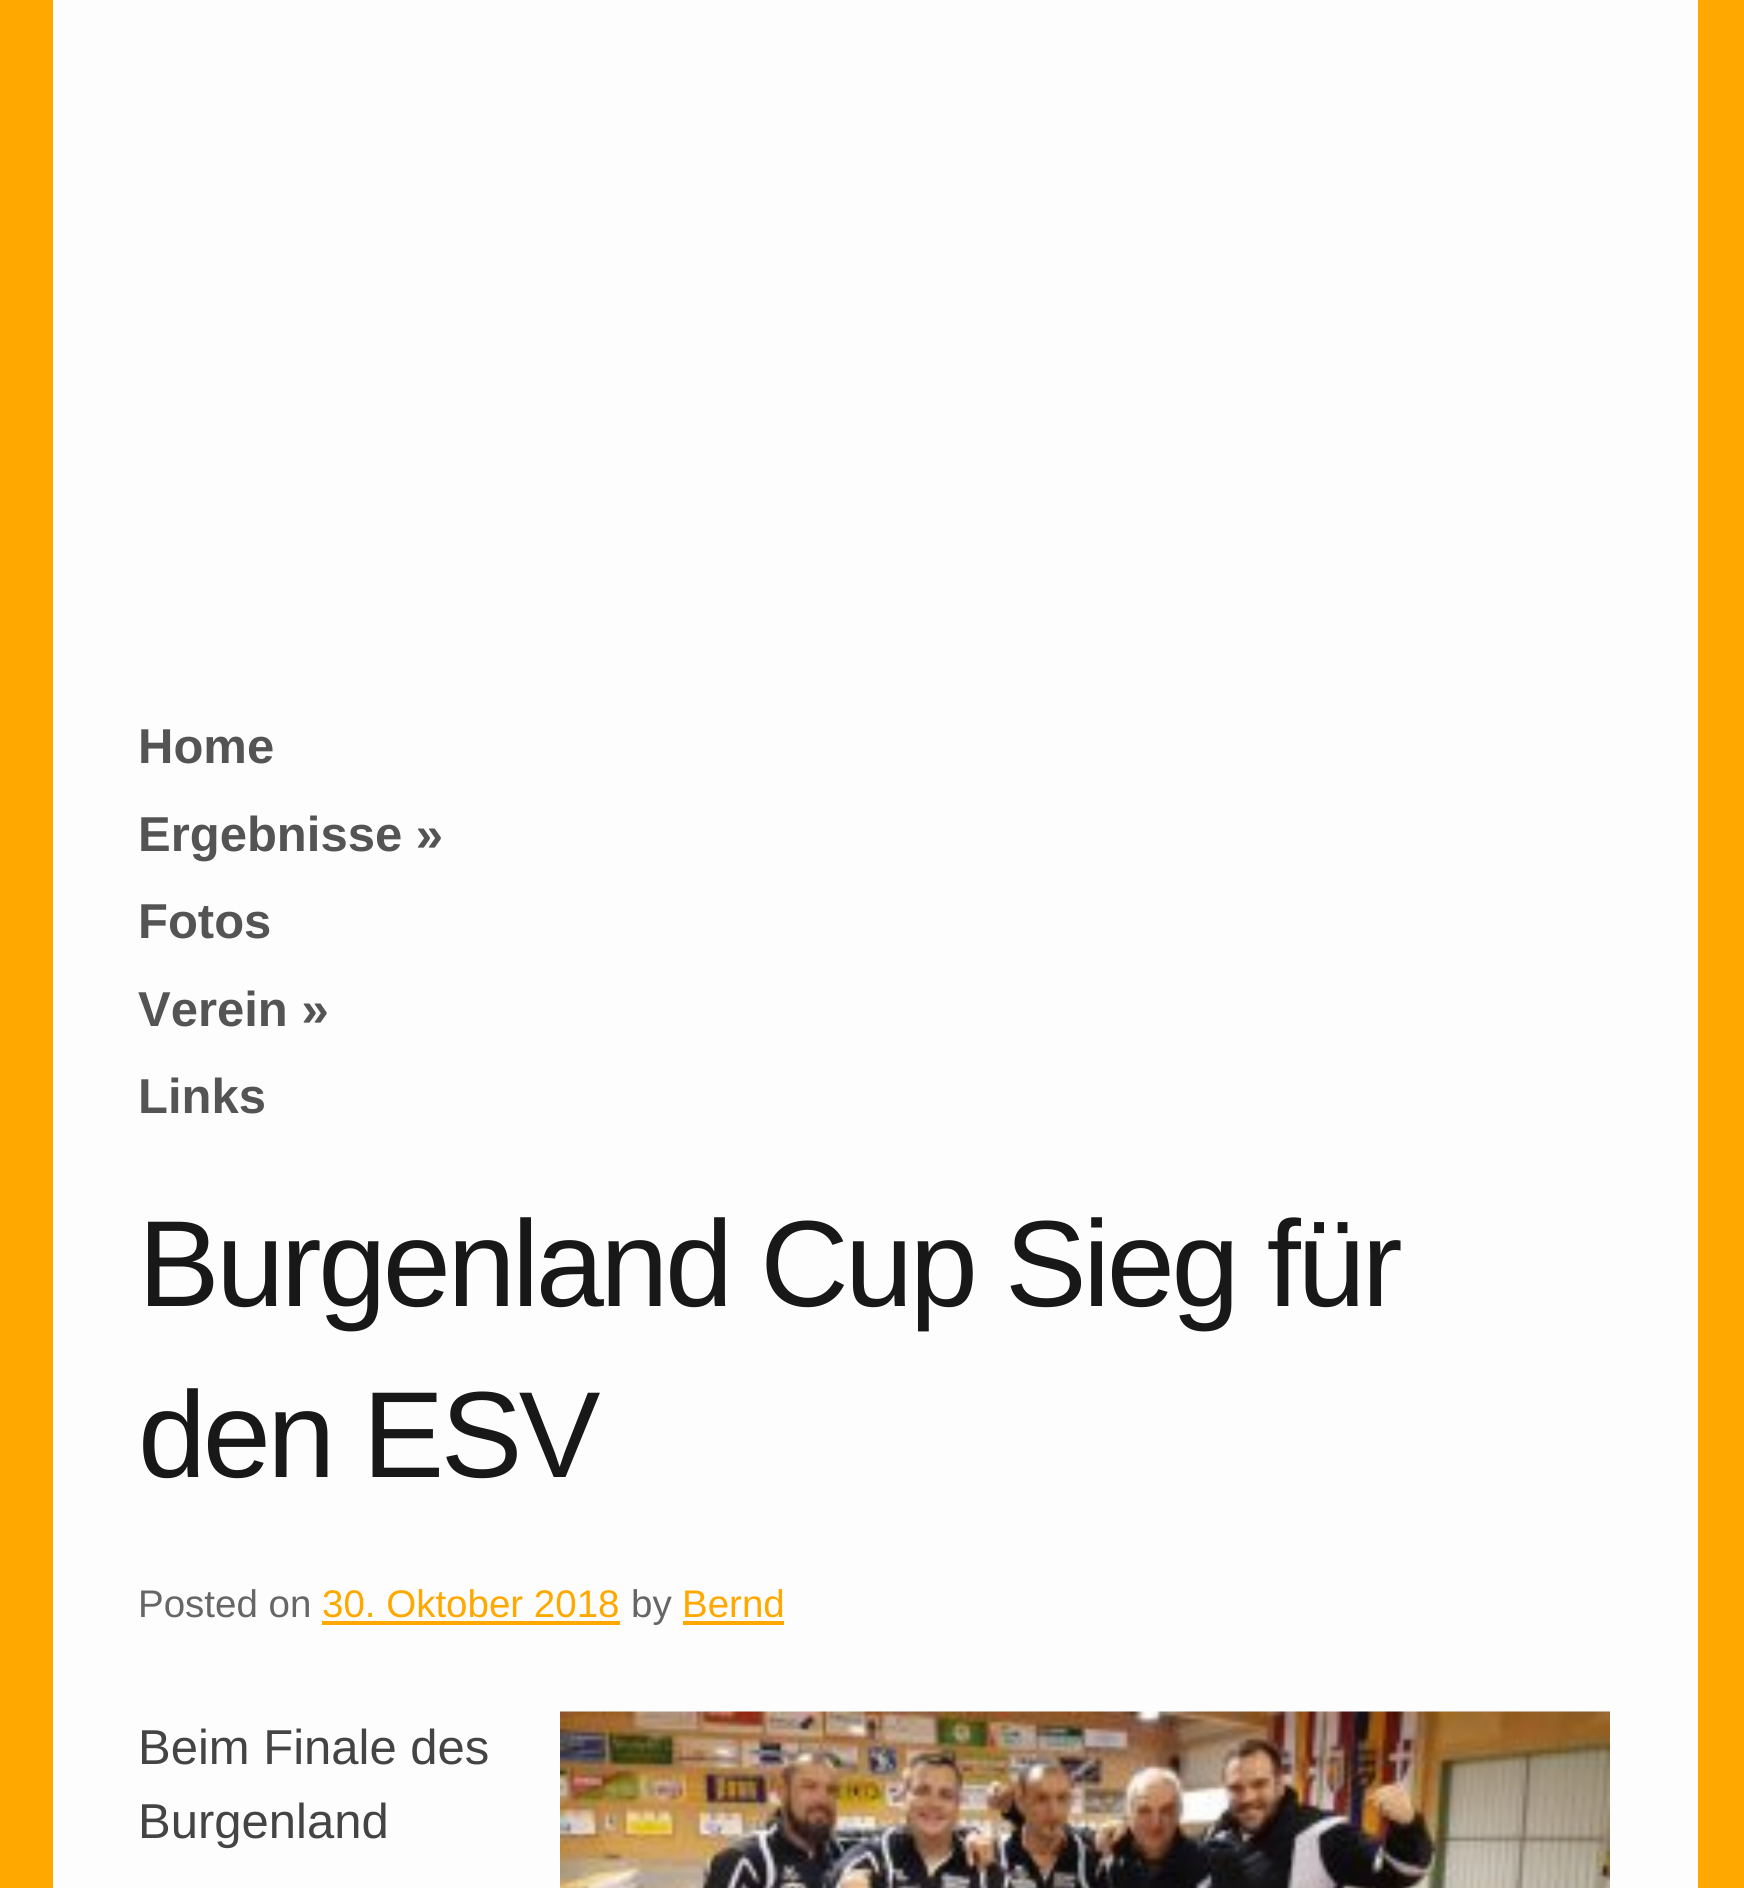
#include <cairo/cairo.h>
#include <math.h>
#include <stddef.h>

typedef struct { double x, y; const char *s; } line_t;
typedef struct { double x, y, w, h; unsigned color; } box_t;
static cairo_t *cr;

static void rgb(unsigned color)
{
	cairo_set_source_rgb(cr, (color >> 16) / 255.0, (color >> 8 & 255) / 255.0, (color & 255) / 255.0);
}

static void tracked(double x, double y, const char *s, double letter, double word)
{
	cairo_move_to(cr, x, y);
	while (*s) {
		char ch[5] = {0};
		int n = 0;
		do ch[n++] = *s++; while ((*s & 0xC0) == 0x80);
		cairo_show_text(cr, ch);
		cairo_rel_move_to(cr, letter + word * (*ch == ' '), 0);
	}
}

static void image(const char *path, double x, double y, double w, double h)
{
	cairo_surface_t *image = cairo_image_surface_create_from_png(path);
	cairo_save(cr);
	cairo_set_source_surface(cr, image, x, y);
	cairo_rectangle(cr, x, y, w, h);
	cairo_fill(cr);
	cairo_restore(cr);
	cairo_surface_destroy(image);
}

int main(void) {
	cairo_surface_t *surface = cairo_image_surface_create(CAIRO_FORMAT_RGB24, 1744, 1888);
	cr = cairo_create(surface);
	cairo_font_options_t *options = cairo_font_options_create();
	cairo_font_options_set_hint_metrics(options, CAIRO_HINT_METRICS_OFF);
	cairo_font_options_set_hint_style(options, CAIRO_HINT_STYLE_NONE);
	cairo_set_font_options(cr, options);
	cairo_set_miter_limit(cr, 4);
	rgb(0xffa800);
	cairo_paint(cr);
	{
		static const box_t items[] = {
			{53, 0, 1645, 1888, 0xfdfdfd},
			{322, 1621, 298, 4, 0xffa800},
			{683, 1621, 101, 4, 0xffa800},
		};
		for (size_t i = 0; i < sizeof items / sizeof *items; i++) {
			rgb(items[i].color);
			cairo_rectangle(cr, items[i].x, items[i].y, items[i].w, items[i].h);
			cairo_fill(cr);
		}
	}
	image("img/1.png", 560, 1711, 1050, 177);
	cairo_select_font_face(cr, "Liberation Sans", CAIRO_FONT_SLANT_NORMAL, CAIRO_FONT_WEIGHT_BOLD);
	cairo_set_font_size(cr, 49);
	rgb(0x545454);
	{
		static const line_t items[] = {
			{138, 763, "Home"},
			{138, 851, "Ergebnisse »"},
			{138, 938, "Fotos"},
			{138, 1026, "Verein »"},
			{138, 1113, "Links"},
		};
		for (size_t i = 0; i < sizeof items / sizeof *items; i++) {
			cairo_move_to(cr, items[i].x, items[i].y);
			cairo_show_text(cr, items[i].s);
		}
	}
	cairo_select_font_face(cr, "Liberation Sans", CAIRO_FONT_SLANT_NORMAL, CAIRO_FONT_WEIGHT_NORMAL);
	cairo_set_font_size(cr, 122.5);
	rgb(0x181818);
	tracked(138, 1306, "Burgenland Cup Sieg für", -3.5, 0);
	tracked(138, 1477, "den ESV", -3.5, 0);
	cairo_set_font_size(cr, 38.5);
	rgb(0x666666);
	cairo_move_to(cr, 138, 1617);
	cairo_show_text(cr, "Posted on");
	rgb(0xffa800);
	cairo_move_to(cr, 322, 1617);
	cairo_show_text(cr, "30. Oktober 2018");
	rgb(0x666666);
	cairo_move_to(cr, 631, 1617);
	cairo_show_text(cr, "by");
	rgb(0xffa800);
	cairo_move_to(cr, 682, 1617);
	cairo_show_text(cr, "Bernd");
	cairo_set_font_size(cr, 49);
	rgb(0x444444);
	cairo_move_to(cr, 138, 1764);
	cairo_show_text(cr, "Beim Finale des");
	cairo_move_to(cr, 138, 1838);
	cairo_show_text(cr, "Burgenland");
	cairo_surface_write_to_png(surface, "page.png");
	cairo_font_options_destroy(options);
	cairo_destroy(cr);
	cairo_surface_destroy(surface);
	return 0;
}
